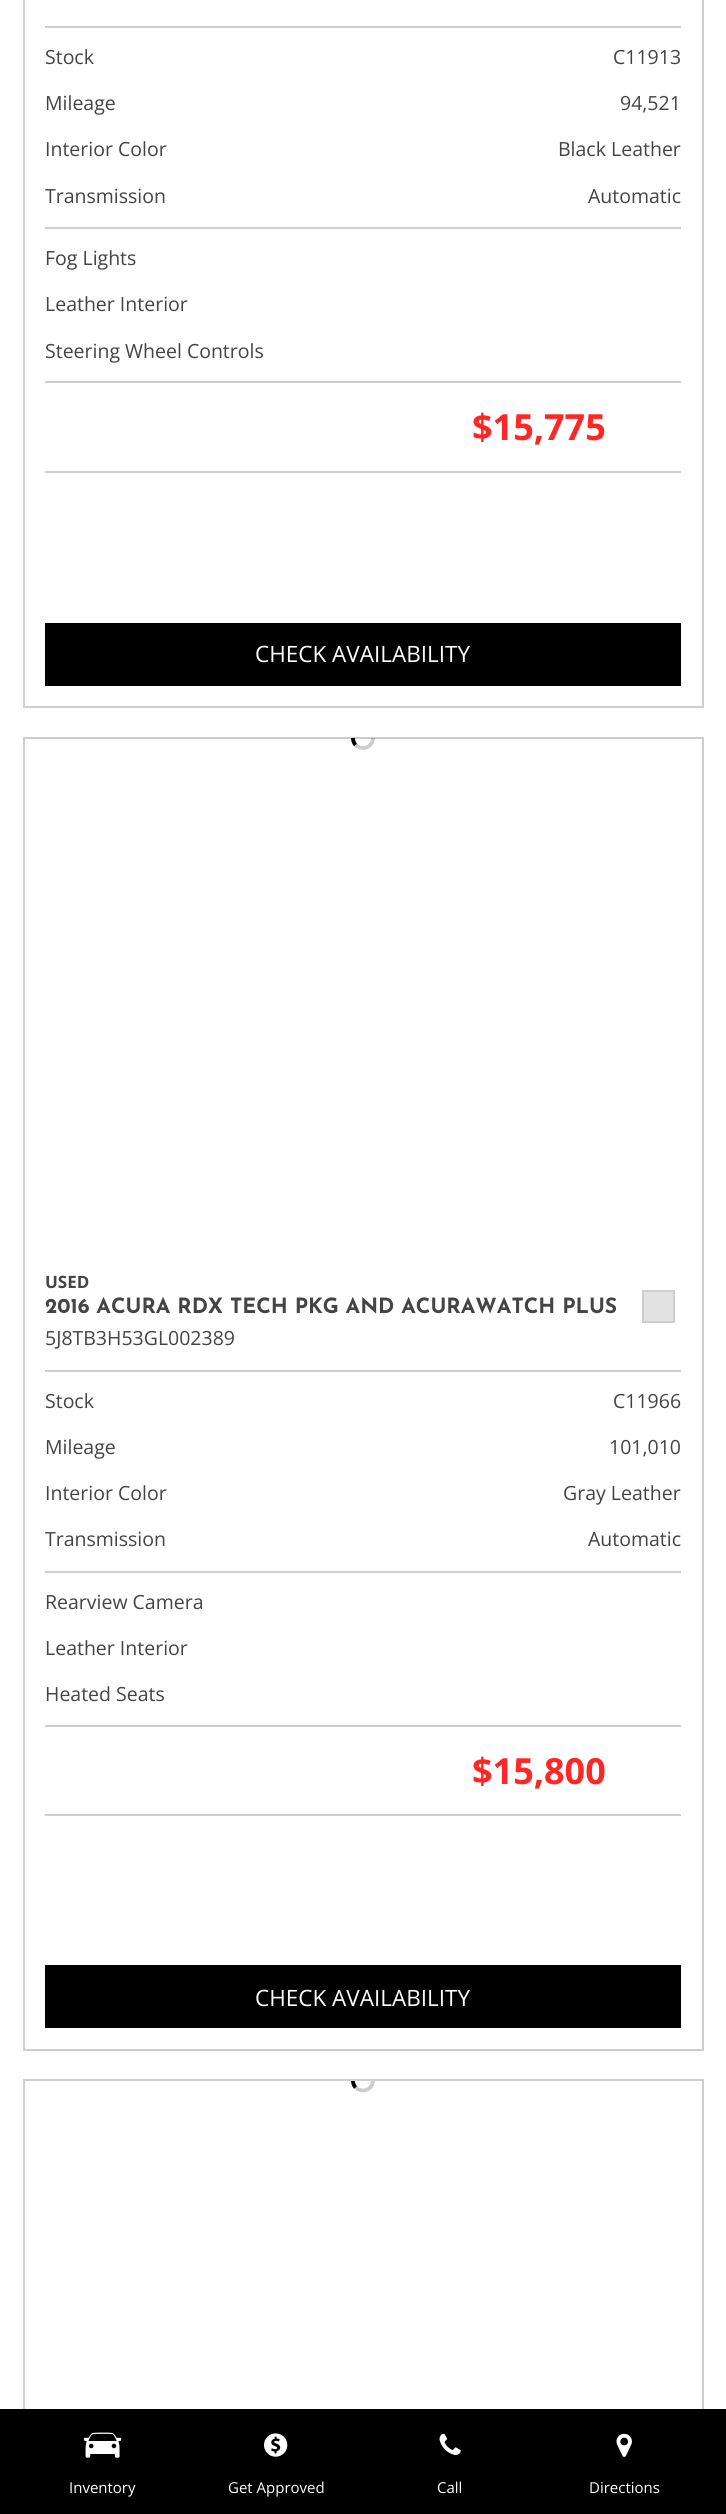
#include <cairo/cairo.h>
#include <math.h>
#include <stddef.h>

typedef struct { double x, y; const char *s; } line_t;
typedef struct { double x, y, w, h; unsigned color; } box_t;
static cairo_t *cr;

static void rgb(unsigned color)
{
	cairo_set_source_rgb(cr, (color >> 16) / 255.0, (color >> 8 & 255) / 255.0, (color & 255) / 255.0);
}

static void image(const char *path, double x, double y, double w, double h)
{
	cairo_surface_t *image = cairo_image_surface_create_from_png(path);
	cairo_save(cr);
	cairo_set_source_surface(cr, image, x, y);
	cairo_rectangle(cr, x, y, w, h);
	cairo_fill(cr);
	cairo_restore(cr);
	cairo_surface_destroy(image);
}

int main(void) {
	cairo_surface_t *surface = cairo_image_surface_create(CAIRO_FORMAT_RGB24, 726, 2514);
	cr = cairo_create(surface);
	cairo_font_options_t *options = cairo_font_options_create();
	cairo_font_options_set_hint_metrics(options, CAIRO_HINT_METRICS_OFF);
	cairo_font_options_set_hint_style(options, CAIRO_HINT_STYLE_NONE);
	cairo_set_font_options(cr, options);
	cairo_set_miter_limit(cr, 4);
	rgb(0xffffff);
	cairo_paint(cr);
	cairo_rectangle(cr, 24, -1, 679, 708);
	rgb(0xcecece);
	cairo_stroke(cr);
	{
		static const box_t items[] = {
			{45, 26, 636, 2, 0xcecece},
			{45, 227, 636, 2, 0xcecece},
			{45, 381, 636, 2, 0xcecece},
			{45, 471, 636, 2, 0xcecece},
			{45, 623, 636, 63, 0x000000},
		};
		for (size_t i = 0; i < sizeof items / sizeof *items; i++) {
			rgb(items[i].color);
			cairo_rectangle(cr, items[i].x, items[i].y, items[i].w, items[i].h);
			cairo_fill(cr);
		}
	}
	cairo_rectangle(cr, 24, 738, 679, 1312);
	rgb(0xcecece);
	cairo_stroke(cr);
	cairo_save(cr);
	cairo_rectangle(cr, 351, 738, 24, 12);
	cairo_clip(cr);
	cairo_arc(cr, 363, 738, 10, 0, 2 * M_PI);
	cairo_set_source_rgba(cr, 0, 0, 0, 0.2);
	cairo_set_line_width(cr, 3.8);
	cairo_stroke(cr);
	cairo_new_path(cr);
	cairo_move_to(cr, 355.5, 745);
	cairo_curve_to(cr, 352, 741, 352, 734.5, 356, 730.5);
	rgb(0x000000);
	cairo_stroke(cr);
	cairo_restore(cr);
	rgb(0xe2e2e2);
	cairo_rectangle(cr, 643, 1291, 31, 31);
	cairo_fill_preserve(cr);
	rgb(0xcecece);
	cairo_stroke(cr);
	{
		static const box_t items[] = {
			{45, 1370, 636, 2, 0xcecece},
			{45, 1571, 636, 2, 0xcecece},
			{45, 1725, 636, 2, 0xcecece},
			{45, 1814, 636, 2, 0xcecece},
			{45, 1965, 636, 63, 0x000000},
		};
		for (size_t i = 0; i < sizeof items / sizeof *items; i++) {
			rgb(items[i].color);
			cairo_rectangle(cr, items[i].x, items[i].y, items[i].w, items[i].h);
			cairo_fill(cr);
		}
	}
	cairo_rectangle(cr, 24, 2080, 679, 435);
	rgb(0xcecece);
	cairo_stroke(cr);
	cairo_save(cr);
	cairo_rectangle(cr, 351, 2081, 24, 12);
	cairo_clip(cr);
	cairo_arc(cr, 363, 2080.5, 10, 0, 2 * M_PI);
	rgb(0xcccccc);
	cairo_set_line_width(cr, 3.8);
	cairo_stroke(cr);
	cairo_new_path(cr);
	cairo_move_to(cr, 355.5, 2087.5);
	cairo_curve_to(cr, 352, 2083.5, 352, 2077, 356, 2073);
	rgb(0x000000);
	cairo_stroke(cr);
	cairo_restore(cr);
	rgb(0x000000);
	cairo_rectangle(cr, 0, 2409, 726, 105);
	cairo_fill(cr);
	image("img/1.png", 84, 2432, 38, 26);
	image("img/2.png", 264, 2433, 24, 24);
	image("img/3.png", 439, 2433, 22, 22);
	image("img/4.png", 616, 2433, 16, 24);
	cairo_select_font_face(cr, "Open Sans", CAIRO_FONT_SLANT_NORMAL, CAIRO_FONT_WEIGHT_NORMAL);
	cairo_set_font_size(cr, 19.5);
	rgb(0x444444);
	{
		static const line_t items[] = {
			{45, 64, "Stock"},
			{613, 64, "C11913"},
			{45, 110, "Mileage"},
			{620, 110, "94,521"},
			{45, 156, "Interior Color"},
			{558, 156, "Black Leather"},
			{45, 203, "Transmission"},
			{588, 203, "Automatic"},
			{45, 265, "Fog Lights"},
			{45, 311, "Leather Interior"},
			{45, 358, "Steering Wheel Controls"},
		};
		for (size_t i = 0; i < sizeof items / sizeof *items; i++) {
			cairo_move_to(cr, items[i].x, items[i].y);
			cairo_show_text(cr, items[i].s);
		}
	}
	cairo_select_font_face(cr, "Open Sans", CAIRO_FONT_SLANT_NORMAL, CAIRO_FONT_WEIGHT_BOLD);
	cairo_set_font_size(cr, 36);
	rgb(0xff2626);
	cairo_move_to(cr, 472, 440);
	cairo_show_text(cr, "$15,775");
	cairo_select_font_face(cr, "Open Sans", CAIRO_FONT_SLANT_NORMAL, CAIRO_FONT_WEIGHT_NORMAL);
	cairo_set_font_size(cr, 22.5);
	rgb(0xffffff);
	cairo_move_to(cr, 255, 662);
	cairo_show_text(cr, "CHECK AVAILABILITY");
	cairo_select_font_face(cr, "Open Sans", CAIRO_FONT_SLANT_NORMAL, CAIRO_FONT_WEIGHT_BOLD);
	cairo_set_font_size(cr, 17);
	rgb(0x444444);
	cairo_move_to(cr, 45, 1288);
	cairo_show_text(cr, "USED");
	cairo_select_font_face(cr, "Josefin Sans", CAIRO_FONT_SLANT_NORMAL, CAIRO_FONT_WEIGHT_BOLD);
	cairo_set_font_size(cr, 21);
	cairo_move_to(cr, 45, 1313);
	cairo_show_text(cr, "2016 ACURA RDX TECH PKG AND ACURAWATCH PLUS");
	cairo_select_font_face(cr, "Open Sans", CAIRO_FONT_SLANT_NORMAL, CAIRO_FONT_WEIGHT_NORMAL);
	cairo_set_font_size(cr, 19.5);
	{
		static const line_t items[] = {
			{45, 1345, "5J8TB3H53GL002389"},
			{45, 1408, "Stock"},
			{613, 1408, "C11966"},
			{45, 1454, "Mileage"},
			{609, 1454, "101,010"},
			{45, 1500, "Interior Color"},
			{563, 1500, "Gray Leather"},
			{45, 1546, "Transmission"},
			{588, 1546, "Automatic"},
			{45, 1609, "Rearview Camera"},
			{45, 1655, "Leather Interior"},
			{45, 1701, "Heated Seats"},
		};
		for (size_t i = 0; i < sizeof items / sizeof *items; i++) {
			cairo_move_to(cr, items[i].x, items[i].y);
			cairo_show_text(cr, items[i].s);
		}
	}
	cairo_select_font_face(cr, "Open Sans", CAIRO_FONT_SLANT_NORMAL, CAIRO_FONT_WEIGHT_BOLD);
	cairo_set_font_size(cr, 36);
	rgb(0xff2626);
	cairo_move_to(cr, 472, 1784);
	cairo_show_text(cr, "$15,800");
	cairo_select_font_face(cr, "Open Sans", CAIRO_FONT_SLANT_NORMAL, CAIRO_FONT_WEIGHT_NORMAL);
	cairo_set_font_size(cr, 22.5);
	rgb(0xffffff);
	cairo_move_to(cr, 255, 2006);
	cairo_show_text(cr, "CHECK AVAILABILITY");
	cairo_set_font_size(cr, 15);
	{
		static const line_t items[] = {
			{69, 2493, "Inventory"},
			{228, 2493, "Get Approved"},
			{437, 2493, "Call"},
			{589, 2493, "Directions"},
		};
		for (size_t i = 0; i < sizeof items / sizeof *items; i++) {
			cairo_move_to(cr, items[i].x, items[i].y);
			cairo_show_text(cr, items[i].s);
		}
	}
	cairo_surface_write_to_png(surface, "page.png");
	cairo_font_options_destroy(options);
	cairo_destroy(cr);
	cairo_surface_destroy(surface);
	return 0;
}
